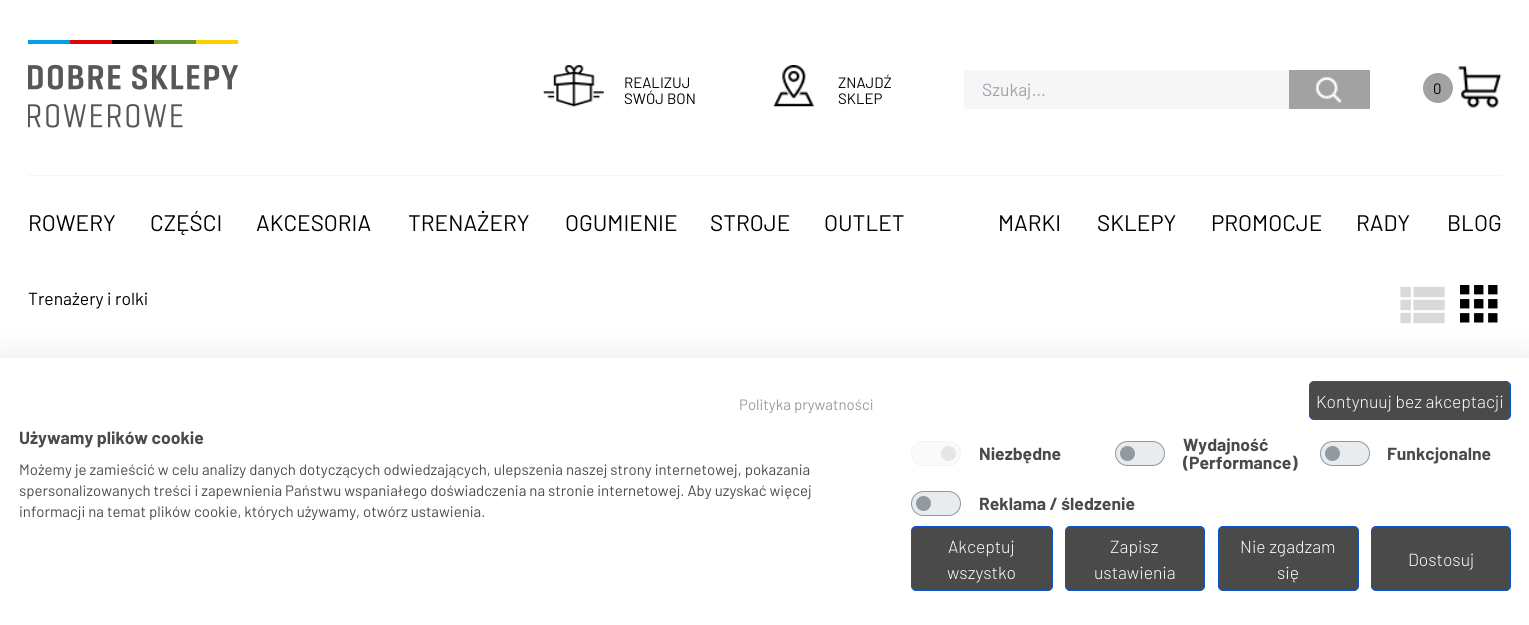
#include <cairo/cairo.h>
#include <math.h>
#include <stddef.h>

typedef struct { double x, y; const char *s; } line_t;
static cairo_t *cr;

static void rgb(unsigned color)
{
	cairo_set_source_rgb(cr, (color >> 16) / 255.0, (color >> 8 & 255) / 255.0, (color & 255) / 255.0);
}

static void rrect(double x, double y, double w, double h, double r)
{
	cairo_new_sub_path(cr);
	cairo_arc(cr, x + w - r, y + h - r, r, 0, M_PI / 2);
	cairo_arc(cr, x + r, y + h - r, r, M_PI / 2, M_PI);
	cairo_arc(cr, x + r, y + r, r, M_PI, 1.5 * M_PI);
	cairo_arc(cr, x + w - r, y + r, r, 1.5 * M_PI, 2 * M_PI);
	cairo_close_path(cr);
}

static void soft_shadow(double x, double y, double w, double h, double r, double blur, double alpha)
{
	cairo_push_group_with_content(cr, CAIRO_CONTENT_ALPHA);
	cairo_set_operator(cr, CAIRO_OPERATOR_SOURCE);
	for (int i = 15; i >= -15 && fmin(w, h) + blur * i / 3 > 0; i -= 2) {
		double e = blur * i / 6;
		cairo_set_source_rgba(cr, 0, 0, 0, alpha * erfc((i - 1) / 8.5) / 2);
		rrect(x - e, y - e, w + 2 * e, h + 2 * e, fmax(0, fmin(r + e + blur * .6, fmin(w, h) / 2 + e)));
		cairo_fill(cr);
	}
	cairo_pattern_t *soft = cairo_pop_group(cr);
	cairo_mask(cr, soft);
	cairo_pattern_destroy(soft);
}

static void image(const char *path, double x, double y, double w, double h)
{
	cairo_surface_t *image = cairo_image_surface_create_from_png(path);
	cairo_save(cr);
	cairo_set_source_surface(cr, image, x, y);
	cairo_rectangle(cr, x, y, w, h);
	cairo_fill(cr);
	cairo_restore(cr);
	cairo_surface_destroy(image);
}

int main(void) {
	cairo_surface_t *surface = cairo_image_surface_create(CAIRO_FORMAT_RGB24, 1529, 625);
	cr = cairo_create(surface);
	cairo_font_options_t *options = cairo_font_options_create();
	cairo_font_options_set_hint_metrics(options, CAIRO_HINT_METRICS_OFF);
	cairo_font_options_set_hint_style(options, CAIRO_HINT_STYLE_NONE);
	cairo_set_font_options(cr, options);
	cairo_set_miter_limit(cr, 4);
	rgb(0xffffff);
	cairo_paint(cr);
	image("img/1.png", 28, 40, 210, 88);
	image("img/2.png", 543, 65, 61, 42);
	image("img/3.png", 773, 65, 41, 42);
	rgb(0xf6f6f6);
	cairo_rectangle(cr, 964, 70, 325, 39);
	cairo_fill(cr);
	rgb(0xa2a2a2);
	cairo_rectangle(cr, 1289, 70, 81, 39);
	cairo_fill(cr);
	image("img/4.png", 1315, 76, 27, 27);
	cairo_arc(cr, 1438, 88, 15, 0, 2 * M_PI);
	cairo_fill(cr);
	image("img/5.png", 1458, 66, 44, 43);
	rgb(0xf6f6f6);
	cairo_rectangle(cr, 28, 175, 1475, 1);
	cairo_fill(cr);
	image("img/6.png", 1400, 286, 45, 38);
	image("img/7.png", 1460, 285, 38, 38);
	rgb(0x000000);
	soft_shadow(0, 358, 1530, 267, 0, 15, 0.1);
	rgb(0xffffff);
	cairo_rectangle(cr, 0, 358, 1529, 267);
	cairo_fill(cr);
	rgb(0x4a4a4a);
	rrect(1309.5, 381.5, 201, 38, 4.5);
	cairo_fill_preserve(cr);
	rgb(0x0d56c9);
	cairo_set_line_width(cr, 1);
	cairo_stroke(cr);
	rgb(0xfafafa);
	rrect(911, 441, 50, 25, 12.5);
	cairo_fill(cr);
	rgb(0xe6e6e6);
	cairo_arc(cr, 948.5, 453.5, 7.5, 0, 2 * M_PI);
	cairo_fill(cr);
	rrect(911.5, 441.5, 49, 24, 12);
	rgb(0xf3f3f3);
	cairo_stroke(cr);
	rgb(0xe9ecef);
	rrect(1115, 441, 50, 25, 12.5);
	cairo_fill(cr);
	rgb(0x92999f);
	cairo_arc(cr, 1127.5, 453.5, 7.5, 0, 2 * M_PI);
	cairo_fill(cr);
	rrect(1115.5, 441.5, 49, 24, 12);
	cairo_set_source_rgba(cr, 0.424, 0.459, 0.49, 0.7);
	cairo_stroke(cr);
	rgb(0xe9ecef);
	rrect(1320, 441, 50, 25, 12.5);
	cairo_fill(cr);
	rgb(0x92999f);
	cairo_arc(cr, 1332.5, 453.5, 7.5, 0, 2 * M_PI);
	cairo_fill(cr);
	rrect(1320.5, 441.5, 49, 24, 12);
	cairo_set_source_rgba(cr, 0.424, 0.459, 0.49, 0.7);
	cairo_stroke(cr);
	rgb(0xe9ecef);
	rrect(911, 491, 50, 25, 12.5);
	cairo_fill(cr);
	rgb(0x92999f);
	cairo_arc(cr, 923.5, 503.5, 7.5, 0, 2 * M_PI);
	cairo_fill(cr);
	rrect(911.5, 491.5, 49, 24, 12);
	cairo_set_source_rgba(cr, 0.424, 0.459, 0.49, 0.7);
	cairo_stroke(cr);
	rgb(0x4a4a4a);
	rrect(911.5, 526.5, 141, 64, 4.5);
	cairo_fill_preserve(cr);
	rgb(0x0d56c9);
	cairo_stroke(cr);
	rgb(0x4a4a4a);
	rrect(1065.5, 526.5, 139, 64, 4.5);
	cairo_fill_preserve(cr);
	rgb(0x0d56c9);
	cairo_stroke(cr);
	rgb(0x4a4a4a);
	rrect(1218.5, 526.5, 140, 64, 4.5);
	cairo_fill_preserve(cr);
	rgb(0x0d56c9);
	cairo_stroke(cr);
	rgb(0x4a4a4a);
	rrect(1371.5, 526.5, 139, 64, 4.5);
	cairo_fill_preserve(cr);
	rgb(0x0d56c9);
	cairo_stroke(cr);
	cairo_select_font_face(cr, "Barlow", CAIRO_FONT_SLANT_NORMAL, CAIRO_FONT_WEIGHT_NORMAL);
	cairo_set_font_size(cr, 15);
	rgb(0x000000);
	{
		static const line_t items[] = {
			{624, 88, "REALIZUJ"},
			{624, 104, "SWÓJ BON"},
			{838, 88, "ZNAJDŹ"},
			{838, 104, "SKLEP"},
		};
		for (size_t i = 0; i < sizeof items / sizeof *items; i++) {
			cairo_move_to(cr, items[i].x, items[i].y);
			cairo_show_text(cr, items[i].s);
		}
	}
	cairo_set_font_size(cr, 17.5);
	rgb(0x9ca3af);
	cairo_move_to(cr, 982, 96);
	cairo_show_text(cr, "Szukaj...");
	cairo_set_font_size(cr, 15);
	rgb(0x000000);
	cairo_move_to(cr, 1433, 94);
	cairo_show_text(cr, "0");
	cairo_set_font_size(cr, 22.5);
	{
		static const line_t items[] = {
			{28, 231, "ROWERY"},
			{150, 231, "CZĘŚCI"},
			{256, 231, "AKCESORIA"},
			{408, 231, "TRENAŻERY"},
			{565, 231, "OGUMIENIE"},
			{710, 231, "STROJE"},
			{824, 231, "OUTLET"},
			{998, 231, "MARKI"},
			{1097, 231, "SKLEPY"},
			{1211, 231, "PROMOCJE"},
			{1356, 231, "RADY"},
			{1447, 231, "BLOG"},
		};
		for (size_t i = 0; i < sizeof items / sizeof *items; i++) {
			cairo_move_to(cr, items[i].x, items[i].y);
			cairo_show_text(cr, items[i].s);
		}
	}
	cairo_set_font_size(cr, 17.5);
	cairo_move_to(cr, 28, 305);
	cairo_show_text(cr, "Trenażery i rolki");
	cairo_set_font_size(cr, 15);
	rgb(0x9b9b9b);
	cairo_move_to(cr, 739, 410);
	cairo_show_text(cr, "Polityka prywatności");
	cairo_select_font_face(cr, "Barlow Light", CAIRO_FONT_SLANT_NORMAL, CAIRO_FONT_WEIGHT_NORMAL);
	cairo_set_font_size(cr, 17.5);
	rgb(0xffffff);
	cairo_move_to(cr, 1316, 408);
	cairo_show_text(cr, "Kontynuuj bez akceptacji");
	cairo_select_font_face(cr, "Barlow", CAIRO_FONT_SLANT_NORMAL, CAIRO_FONT_WEIGHT_BOLD);
	rgb(0x4a4a4a);
	cairo_move_to(cr, 19, 444);
	cairo_show_text(cr, "Używamy plików cookie");
	cairo_select_font_face(cr, "Barlow", CAIRO_FONT_SLANT_NORMAL, CAIRO_FONT_WEIGHT_NORMAL);
	cairo_set_font_size(cr, 15);
	{
		static const line_t items[] = {
			{19, 475, "Możemy je zamieścić w celu analizy danych dotyczących odwiedzających, ulepszenia naszej strony internetowej, pokazania"},
			{19, 496, "spersonalizowanych treści i zapewnienia Państwu wspaniałego doświadczenia na stronie internetowej. Aby uzyskać więcej"},
			{19, 517, "informacji na temat plików cookie, których używamy, otwórz ustawienia."},
		};
		for (size_t i = 0; i < sizeof items / sizeof *items; i++) {
			cairo_move_to(cr, items[i].x, items[i].y);
			cairo_show_text(cr, items[i].s);
		}
	}
	cairo_select_font_face(cr, "Barlow", CAIRO_FONT_SLANT_NORMAL, CAIRO_FONT_WEIGHT_BOLD);
	cairo_set_font_size(cr, 17.5);
	{
		static const line_t items[] = {
			{979, 460, "Niezbędne"},
			{1183, 451, "Wydajność"},
			{1183, 469, "(Performance)"},
			{1387, 460, "Funkcjonalne"},
			{979, 510, "Reklama / śledzenie"},
		};
		for (size_t i = 0; i < sizeof items / sizeof *items; i++) {
			cairo_move_to(cr, items[i].x, items[i].y);
			cairo_show_text(cr, items[i].s);
		}
	}
	cairo_select_font_face(cr, "Barlow Light", CAIRO_FONT_SLANT_NORMAL, CAIRO_FONT_WEIGHT_NORMAL);
	rgb(0xffffff);
	{
		static const line_t items[] = {
			{948, 553, "Akceptuj"},
			{947, 579, "wszystko"},
			{1110, 553, "Zapisz"},
			{1094, 579, "ustawienia"},
			{1240, 553, "Nie zgadzam"},
			{1277, 579, "się"},
			{1408, 566, "Dostosuj"},
		};
		for (size_t i = 0; i < sizeof items / sizeof *items; i++) {
			cairo_move_to(cr, items[i].x, items[i].y);
			cairo_show_text(cr, items[i].s);
		}
	}
	cairo_surface_write_to_png(surface, "page.png");
	cairo_font_options_destroy(options);
	cairo_destroy(cr);
	cairo_surface_destroy(surface);
	return 0;
}
